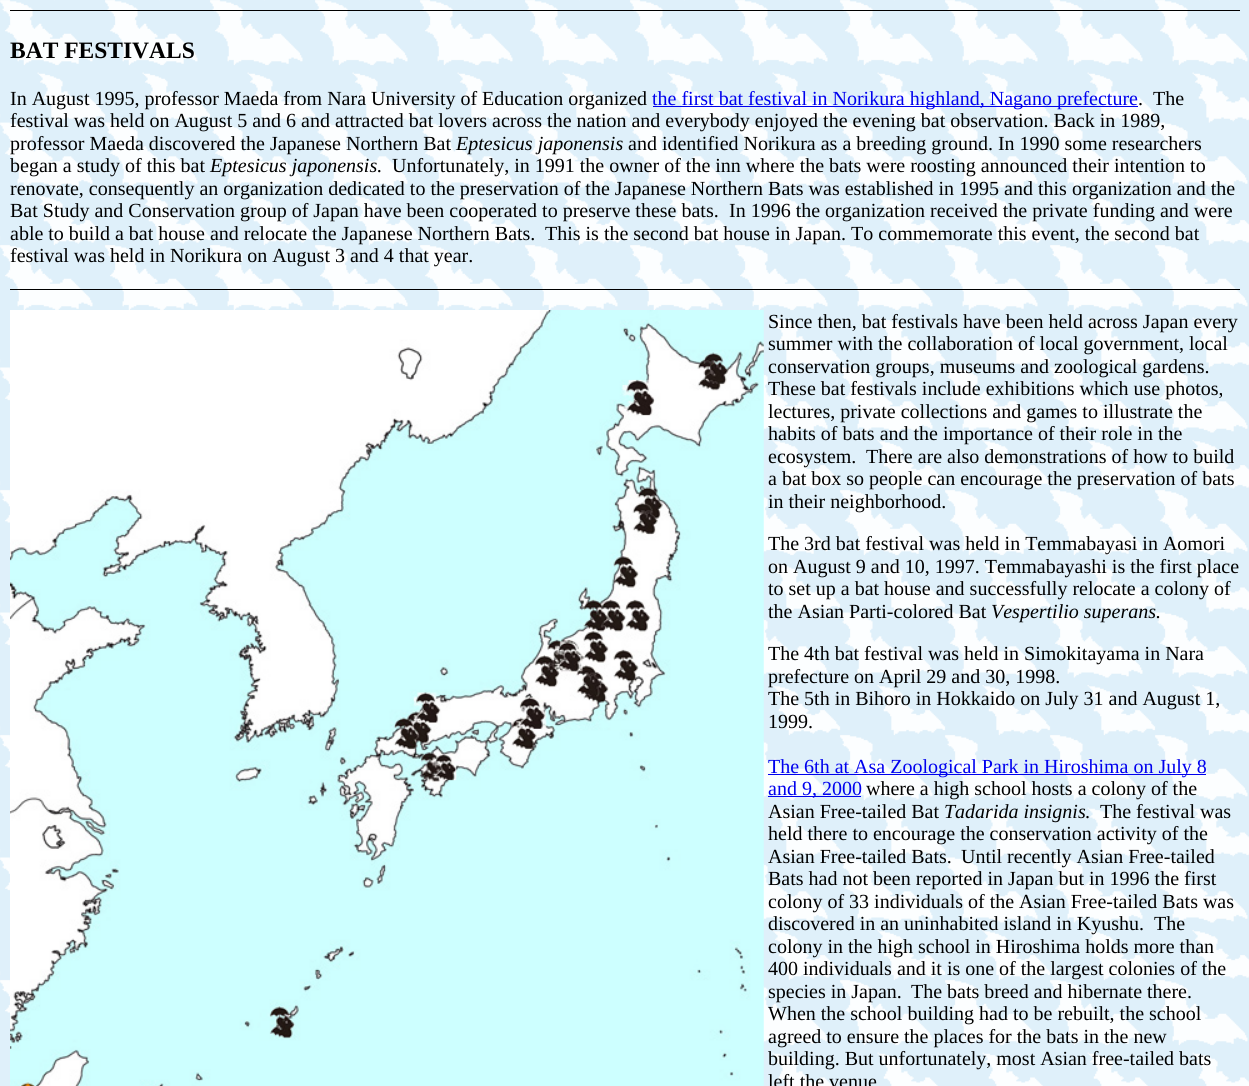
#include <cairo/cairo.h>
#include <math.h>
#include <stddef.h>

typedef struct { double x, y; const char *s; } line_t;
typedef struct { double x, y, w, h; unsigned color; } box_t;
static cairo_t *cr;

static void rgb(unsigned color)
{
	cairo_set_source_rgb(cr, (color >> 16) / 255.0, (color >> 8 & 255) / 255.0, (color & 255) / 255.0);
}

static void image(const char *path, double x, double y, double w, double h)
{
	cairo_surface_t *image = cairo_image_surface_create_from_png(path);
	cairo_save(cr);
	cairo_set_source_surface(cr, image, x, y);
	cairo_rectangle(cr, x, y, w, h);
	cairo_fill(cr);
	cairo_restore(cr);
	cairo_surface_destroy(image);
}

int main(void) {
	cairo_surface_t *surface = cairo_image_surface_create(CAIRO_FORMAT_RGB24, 1249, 1086);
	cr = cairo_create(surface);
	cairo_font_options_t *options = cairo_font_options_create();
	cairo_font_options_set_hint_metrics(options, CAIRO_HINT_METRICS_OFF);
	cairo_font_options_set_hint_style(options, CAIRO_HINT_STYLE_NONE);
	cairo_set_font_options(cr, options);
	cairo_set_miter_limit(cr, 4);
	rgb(0xffffff);
	cairo_paint(cr);
	image("img/1.png", 0, 0, 1249, 1086);
	{
		static const box_t items[] = {
			{10, 10, 1230, 1, 0x000000},
			{10, 289, 1230, 1, 0x000000},
			{653, 106, 485, 1, 0x0000ee},
		};
		for (size_t i = 0; i < sizeof items / sizeof *items; i++) {
			rgb(items[i].color);
			cairo_rectangle(cr, items[i].x, items[i].y, items[i].w, items[i].h);
			cairo_fill(cr);
		}
	}
	image("img/2.png", 10, 310, 754, 776);
	cairo_rectangle(cr, 768, 774, 438, 1);
	cairo_fill(cr);
	cairo_rectangle(cr, 768, 796, 93, 1);
	cairo_fill(cr);
	cairo_select_font_face(cr, "Liberation Serif", CAIRO_FONT_SLANT_NORMAL, CAIRO_FONT_WEIGHT_BOLD);
	cairo_set_font_size(cr, 23.5);
	rgb(0x000000);
	cairo_move_to(cr, 10, 58);
	cairo_show_text(cr, "BAT FESTIVALS");
	cairo_select_font_face(cr, "Liberation Serif", CAIRO_FONT_SLANT_NORMAL, CAIRO_FONT_WEIGHT_NORMAL);
	cairo_set_font_size(cr, 20);
	cairo_move_to(cr, 10, 105);
	cairo_show_text(cr, "In August 1995, professor Maeda from Nara University of Education organized");
	rgb(0x0000ee);
	cairo_move_to(cr, 652, 105);
	cairo_show_text(cr, "the first bat festival in Norikura highland, Nagano prefecture");
	rgb(0x000000);
	{
		static const line_t items[] = {
			{1138, 105, "."},
			{1153, 105, "The"},
			{10, 127, "festival was held on August 5 and 6 and attracted bat lovers across the nation and everybody enjoyed the evening bat observation. Back in 1989,"},
			{10, 150, "professor Maeda discovered the Japanese Northern Bat"},
		};
		for (size_t i = 0; i < sizeof items / sizeof *items; i++) {
			cairo_move_to(cr, items[i].x, items[i].y);
			cairo_show_text(cr, items[i].s);
		}
	}
	cairo_select_font_face(cr, "Liberation Serif", CAIRO_FONT_SLANT_ITALIC, CAIRO_FONT_WEIGHT_NORMAL);
	cairo_move_to(cr, 456, 150);
	cairo_show_text(cr, "Eptesicus japonensis");
	cairo_select_font_face(cr, "Liberation Serif", CAIRO_FONT_SLANT_NORMAL, CAIRO_FONT_WEIGHT_NORMAL);
	cairo_move_to(cr, 628, 150);
	cairo_show_text(cr, "and identified Norikura as a breeding ground. In 1990 some researchers");
	cairo_move_to(cr, 10, 172);
	cairo_show_text(cr, "began a study of this bat");
	cairo_select_font_face(cr, "Liberation Serif", CAIRO_FONT_SLANT_ITALIC, CAIRO_FONT_WEIGHT_NORMAL);
	cairo_move_to(cr, 210, 172);
	cairo_show_text(cr, "Eptesicus japonensis.");
	cairo_select_font_face(cr, "Liberation Serif", CAIRO_FONT_SLANT_NORMAL, CAIRO_FONT_WEIGHT_NORMAL);
	{
		static const line_t items[] = {
			{392, 172, "Unfortunately, in 1991 the owner of the inn where the bats were roosting announced their intention to"},
			{10, 195, "renovate, consequently an organization dedicated to the preservation of the Japanese Northern Bats was established in 1995 and this organization and the"},
			{10, 217, "Bat Study and Conservation group of Japan have been cooperated to preserve these bats."},
			{729, 217, "In 1996 the organization received the private funding and were"},
			{10, 240, "able to build a bat house and relocate the Japanese Northern Bats."},
			{545, 240, "This is the second bat house in Japan. To commemorate this event, the second bat"},
			{10, 262, "festival was held in Norikura on August 3 and 4 that year."},
			{768, 328, "Since then, bat festivals have been held across Japan every"},
			{768, 350, "summer with the collaboration of local government, local"},
			{768, 373, "conservation groups, museums and zoological gardens."},
			{768, 395, "These bat festivals include exhibitions which use photos,"},
			{768, 418, "lectures, private collections and games to illustrate the"},
			{768, 440, "habits of bats and the importance of their role in the"},
			{768, 463, "ecosystem."},
			{866, 463, "There are also demonstrations of how to build"},
			{768, 485, "a bat box so people can encourage the preservation of bats"},
			{768, 508, "in their neighborhood."},
			{768, 550, "The 3rd bat festival was held in Temmabayasi in Aomori"},
			{768, 573, "on August 9 and 10, 1997. Temmabayashi is the first place"},
			{768, 595, "to set up a bat house and successfully relocate a colony of"},
			{768, 618, "the Asian Parti-colored Bat"},
		};
		for (size_t i = 0; i < sizeof items / sizeof *items; i++) {
			cairo_move_to(cr, items[i].x, items[i].y);
			cairo_show_text(cr, items[i].s);
		}
	}
	cairo_select_font_face(cr, "Liberation Serif", CAIRO_FONT_SLANT_ITALIC, CAIRO_FONT_WEIGHT_NORMAL);
	cairo_move_to(cr, 991, 618);
	cairo_show_text(cr, "Vespertilio superans.");
	cairo_select_font_face(cr, "Liberation Serif", CAIRO_FONT_SLANT_NORMAL, CAIRO_FONT_WEIGHT_NORMAL);
	{
		static const line_t items[] = {
			{768, 660, "The 4th bat festival was held in Simokitayama in Nara"},
			{768, 683, "prefecture on April 29 and 30, 1998."},
			{768, 705, "The 5th in Bihoro in Hokkaido on July 31 and August 1,"},
			{768, 728, "1999."},
		};
		for (size_t i = 0; i < sizeof items / sizeof *items; i++) {
			cairo_move_to(cr, items[i].x, items[i].y);
			cairo_show_text(cr, items[i].s);
		}
	}
	rgb(0x0000ee);
	cairo_move_to(cr, 768, 773);
	cairo_show_text(cr, "The 6th at Asa Zoological Park in Hiroshima on July 8");
	cairo_move_to(cr, 768, 795);
	cairo_show_text(cr, "and 9, 2000");
	rgb(0x000000);
	cairo_move_to(cr, 866, 795);
	cairo_show_text(cr, "where a high school hosts a colony of the");
	cairo_move_to(cr, 768, 818);
	cairo_show_text(cr, "Asian Free-tailed Bat");
	cairo_select_font_face(cr, "Liberation Serif", CAIRO_FONT_SLANT_ITALIC, CAIRO_FONT_WEIGHT_NORMAL);
	cairo_move_to(cr, 944, 818);
	cairo_show_text(cr, "Tadarida insignis");
	cairo_select_font_face(cr, "Liberation Serif", CAIRO_FONT_SLANT_NORMAL, CAIRO_FONT_WEIGHT_NORMAL);
	{
		static const line_t items[] = {
			{1085, 818, "."},
			{1100, 818, "The festival was"},
			{768, 840, "held there to encourage the conservation activity of the"},
			{768, 863, "Asian Free-tailed Bats."},
			{961, 863, "Until recently Asian Free-tailed"},
			{768, 885, "Bats had not been reported in Japan but in 1996 the first"},
			{768, 908, "colony of 33 individuals of the Asian Free-tailed Bats was"},
			{768, 930, "discovered in an uninhabited island in Kyushu."},
			{1154, 930, "The"},
			{768, 953, "colony in the high school in Hiroshima holds more than"},
			{768, 975, "400 individuals and it is one of the largest colonies of the"},
			{768, 998, "species in Japan."},
			{911, 998, "The bats breed and hibernate there."},
			{768, 1020, "When the school building had to be rebuilt, the school"},
			{768, 1043, "agreed to ensure the places for the bats in the new"},
			{768, 1065, "building. But unfortunately, most Asian free-tailed bats"},
			{768, 1088, "left the venue"},
		};
		for (size_t i = 0; i < sizeof items / sizeof *items; i++) {
			cairo_move_to(cr, items[i].x, items[i].y);
			cairo_show_text(cr, items[i].s);
		}
	}
	cairo_surface_write_to_png(surface, "page.png");
	cairo_font_options_destroy(options);
	cairo_destroy(cr);
	cairo_surface_destroy(surface);
	return 0;
}
